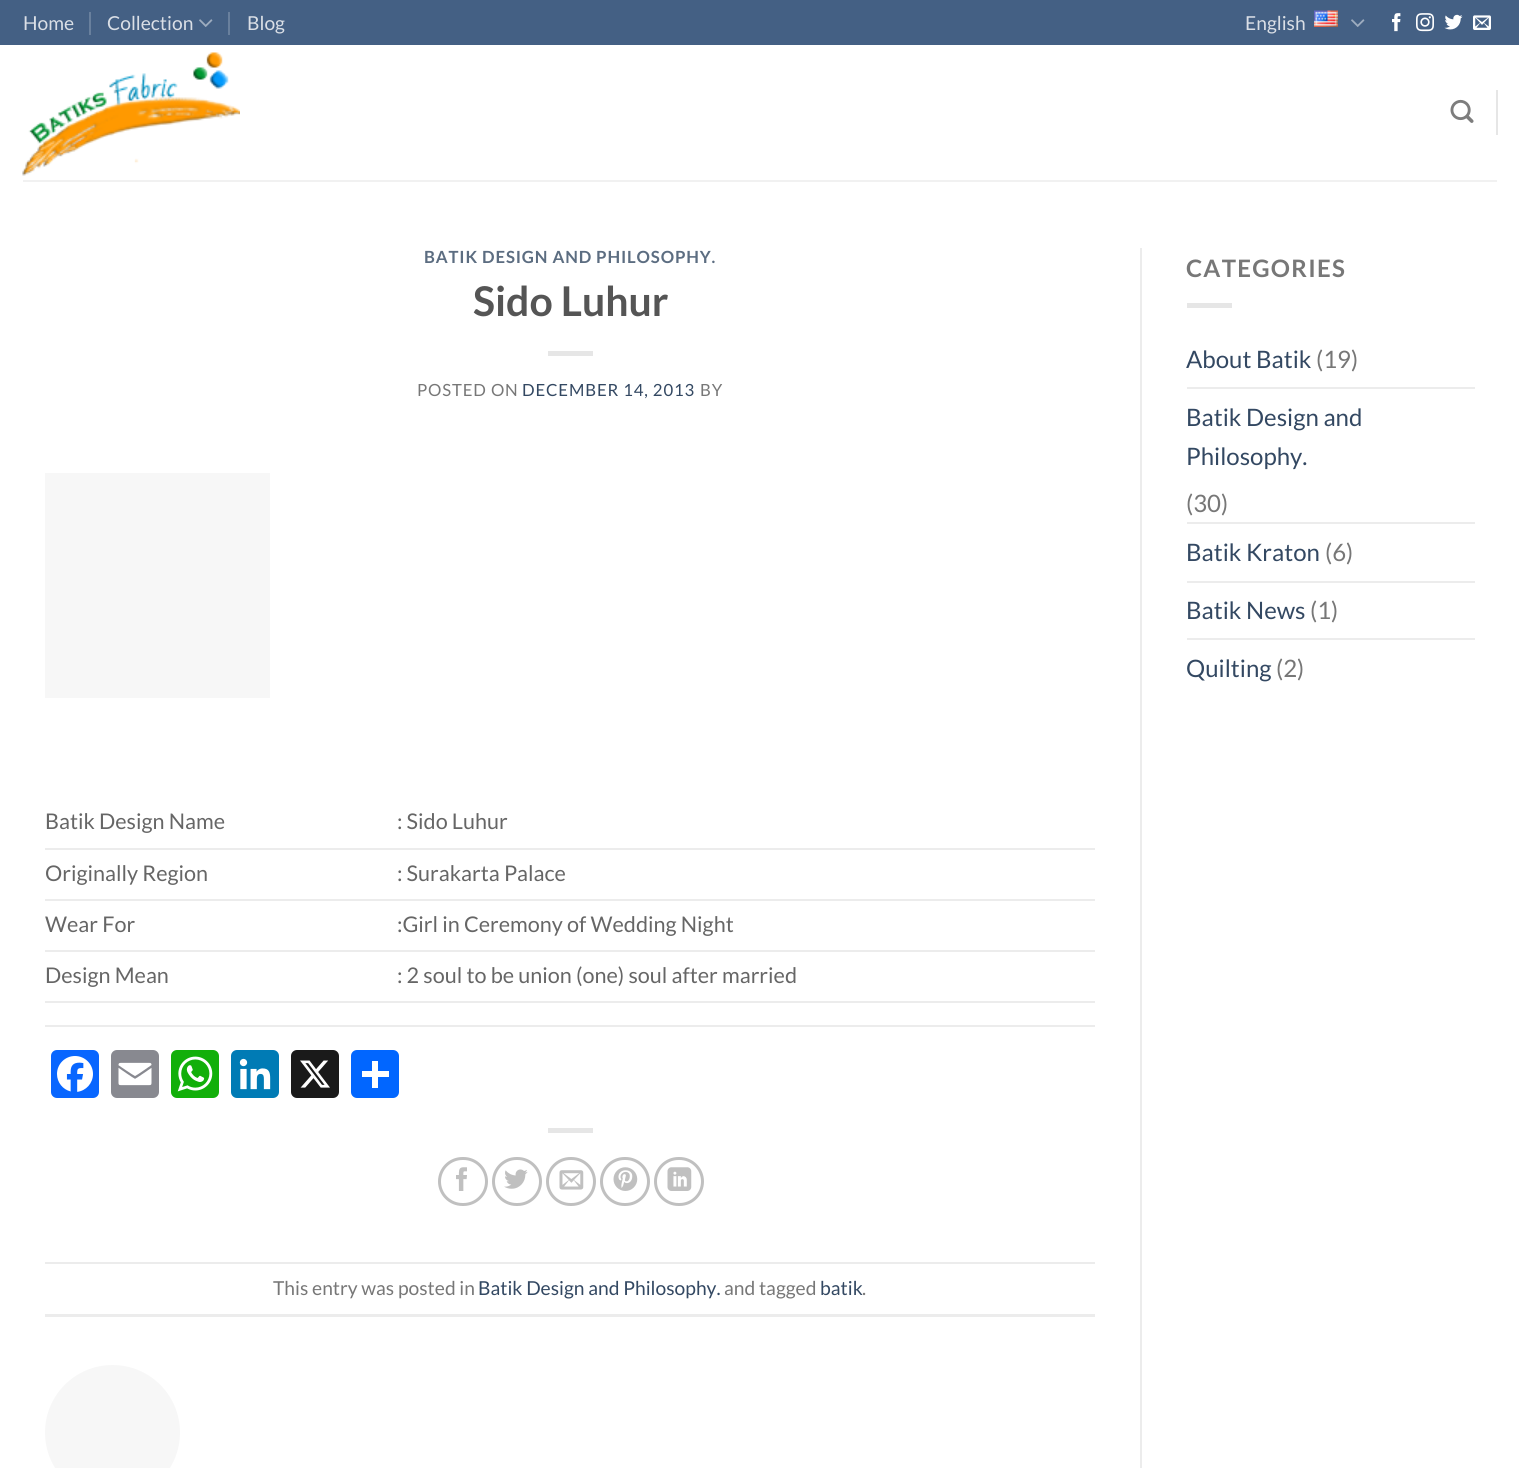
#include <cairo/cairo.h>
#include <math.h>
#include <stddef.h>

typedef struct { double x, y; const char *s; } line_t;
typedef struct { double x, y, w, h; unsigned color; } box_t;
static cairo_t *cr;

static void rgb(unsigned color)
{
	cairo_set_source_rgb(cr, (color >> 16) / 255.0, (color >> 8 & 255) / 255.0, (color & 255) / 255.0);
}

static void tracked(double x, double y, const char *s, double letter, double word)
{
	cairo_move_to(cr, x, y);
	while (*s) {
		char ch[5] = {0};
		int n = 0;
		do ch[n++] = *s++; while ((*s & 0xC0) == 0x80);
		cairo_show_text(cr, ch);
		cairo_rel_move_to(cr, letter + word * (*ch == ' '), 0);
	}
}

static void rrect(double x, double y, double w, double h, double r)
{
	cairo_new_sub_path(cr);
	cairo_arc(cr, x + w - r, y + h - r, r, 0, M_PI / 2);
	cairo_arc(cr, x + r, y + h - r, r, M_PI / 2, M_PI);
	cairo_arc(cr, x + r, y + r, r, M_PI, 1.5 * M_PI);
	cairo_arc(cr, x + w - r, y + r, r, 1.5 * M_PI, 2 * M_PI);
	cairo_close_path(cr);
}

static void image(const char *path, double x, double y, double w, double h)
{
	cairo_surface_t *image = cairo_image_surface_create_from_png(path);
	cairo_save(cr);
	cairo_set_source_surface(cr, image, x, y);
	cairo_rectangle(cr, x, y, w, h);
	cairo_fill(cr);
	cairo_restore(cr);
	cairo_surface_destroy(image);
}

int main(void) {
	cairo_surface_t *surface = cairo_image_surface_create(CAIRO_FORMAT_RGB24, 1519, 1468);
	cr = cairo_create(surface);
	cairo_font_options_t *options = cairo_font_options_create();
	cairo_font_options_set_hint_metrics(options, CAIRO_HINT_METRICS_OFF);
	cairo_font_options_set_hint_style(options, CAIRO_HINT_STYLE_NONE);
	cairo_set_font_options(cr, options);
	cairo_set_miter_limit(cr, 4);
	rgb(0xffffff);
	cairo_paint(cr);
	rgb(0x446084);
	cairo_rectangle(cr, 0, 0, 1519, 45);
	cairo_fill(cr);
	rgb(0x69809d);
	cairo_rectangle(cr, 89, 12, 2, 23);
	cairo_fill(cr);
	image("img/1.png", 199, 19, 14, 8);
	cairo_rectangle(cr, 228, 12, 2, 23);
	cairo_fill(cr);
	image("img/2.png", 1314, 10, 24, 17);
	image("img/1.png", 1351, 19, 14, 8);
	image("img/3.png", 1392, 13, 9, 19);
	image("img/4.png", 1416, 13, 18, 19);
	image("img/5.png", 1444, 14, 19, 16);
	image("img/6.png", 1473, 15, 18, 15);
	image("img/7.png", 22, 52, 218, 124);
	image("img/8.png", 1450, 99, 24, 24);
	{
		static const box_t items[] = {
			{1496, 90, 2, 45, 0xe6e6e6},
			{23, 180, 1474, 2, 0xf1f1f1},
			{548, 351, 45, 5, 0xe6e6e6},
			{45, 473, 225, 225, 0xf7f7f7},
			{45, 848, 1050, 2, 0xececec},
			{45, 899, 1050, 2, 0xececec},
			{45, 950, 1050, 2, 0xececec},
			{45, 1001, 1050, 2, 0xececec},
			{45, 1025, 1050, 2, 0xececec},
		};
		for (size_t i = 0; i < sizeof items / sizeof *items; i++) {
			rgb(items[i].color);
			cairo_rectangle(cr, items[i].x, items[i].y, items[i].w, items[i].h);
			cairo_fill(cr);
		}
	}
	rgb(0x0866ff);
	rrect(51, 1050, 48, 48, 6);
	cairo_fill(cr);
	image("img/9.png", 57, 1056, 36, 36);
	rgb(0x888990);
	rrect(111, 1050, 48, 48, 6);
	cairo_fill(cr);
	image("img/10.png", 118, 1062, 34, 24);
	rgb(0x12af0a);
	rrect(171, 1050, 48, 48, 6);
	cairo_fill(cr);
	image("img/11.png", 177, 1056, 36, 36);
	rgb(0x007bb5);
	rrect(231, 1050, 48, 48, 6);
	cairo_fill(cr);
	image("img/12.png", 239, 1058, 32, 32);
	rgb(0x1a1a1a);
	rrect(291, 1050, 48, 48, 6);
	cairo_fill(cr);
	image("img/13.png", 300, 1060, 30, 28);
	rgb(0x0166ff);
	rrect(351, 1050, 48, 48, 6);
	cairo_fill(cr);
	{
		static const box_t items[] = {
			{372, 1061, 6, 27, 0xffffff},
			{362, 1071, 27, 6, 0xffffff},
			{548, 1128, 45, 5, 0xe6e6e6},
		};
		for (size_t i = 0; i < sizeof items / sizeof *items; i++) {
			rgb(items[i].color);
			cairo_rectangle(cr, items[i].x, items[i].y, items[i].w, items[i].h);
			cairo_fill(cr);
		}
	}
	rrect(439.5, 1158.5, 47, 46, 23);
	rgb(0xc0c0c0);
	cairo_set_line_width(cr, 3);
	cairo_stroke(cr);
	image("img/14.png", 456, 1167, 11, 24);
	rrect(493.5, 1158.5, 47, 46, 23);
	cairo_stroke(cr);
	image("img/15.png", 504, 1169, 24, 20);
	rrect(547.5, 1158.5, 47, 46, 23);
	cairo_stroke(cr);
	image("img/16.png", 559, 1170, 25, 20);
	rrect(601.5, 1158.5, 47, 46, 23);
	cairo_stroke(cr);
	image("img/17.png", 613, 1167, 25, 24);
	rrect(655.5, 1158.5, 47, 46, 23);
	cairo_stroke(cr);
	image("img/18.png", 667, 1167, 25, 24);
	rgb(0xececec);
	cairo_rectangle(cr, 45, 1262, 1050, 2);
	cairo_fill(cr);
	cairo_rectangle(cr, 45, 1314, 1050, 3);
	cairo_fill(cr);
	rgb(0xf7f7f7);
	cairo_arc(cr, 112.5, 1432.5, 67.5, 0, 2 * M_PI);
	cairo_fill(cr);
	{
		static const box_t items[] = {
			{1140, 248, 2, 1220, 0xececec},
			{1187, 303, 45, 5, 0xe6e6e6},
			{1187, 387, 288, 2, 0xececec},
			{1187, 522, 288, 2, 0xececec},
			{1187, 581, 288, 2, 0xececec},
			{1187, 638, 288, 2, 0xececec},
		};
		for (size_t i = 0; i < sizeof items / sizeof *items; i++) {
			rgb(items[i].color);
			cairo_rectangle(cr, items[i].x, items[i].y, items[i].w, items[i].h);
			cairo_fill(cr);
		}
	}
	cairo_select_font_face(cr, "Lato", CAIRO_FONT_SLANT_NORMAL, CAIRO_FONT_WEIGHT_NORMAL);
	cairo_set_font_size(cr, 19.25);
	rgb(0xdadfe6);
	{
		static const line_t items[] = {
			{23, 30, "Home"},
			{107, 30, "Collection"},
			{247, 30, "Blog"},
			{1245, 30, "English"},
		};
		for (size_t i = 0; i < sizeof items / sizeof *items; i++) {
			cairo_move_to(cr, items[i].x, items[i].y);
			cairo_show_text(cr, items[i].s);
		}
	}
	cairo_select_font_face(cr, "Lato", CAIRO_FONT_SLANT_NORMAL, CAIRO_FONT_WEIGHT_BOLD);
	cairo_set_font_size(cr, 16.75);
	rgb(0x5c6d81);
	tracked(424, 263, "BATIK DESIGN AND PHILOSOPHY.", 0.85, 0);
	cairo_set_font_size(cr, 41);
	rgb(0x555555);
	cairo_move_to(cr, 473, 316);
	cairo_show_text(cr, "Sido Luhur");
	cairo_select_font_face(cr, "Lato", CAIRO_FONT_SLANT_NORMAL, CAIRO_FONT_WEIGHT_NORMAL);
	cairo_set_font_size(cr, 16.75);
	rgb(0x777777);
	tracked(417, 396, "POSTED ON", 0.85, 0);
	rgb(0x334862);
	tracked(522, 396, "DECEMBER 14, 2013", 0.85, 0);
	rgb(0x777777);
	tracked(700, 396, "BY", 0.85, 0);
	cairo_set_font_size(cr, 21.6);
	rgb(0x666666);
	{
		static const line_t items[] = {
			{45, 829, "Batik Design Name"},
			{397, 829, ": Sido Luhur"},
			{45, 881, "Originally Region"},
			{397, 881, ": Surakarta Palace"},
			{45, 932, "Wear For"},
			{397, 932, ":Girl in Ceremony of Wedding Night"},
			{45, 983, "Design Mean"},
			{397, 983, ": 2 soul to be union (one) soul after married"},
		};
		for (size_t i = 0; i < sizeof items / sizeof *items; i++) {
			cairo_move_to(cr, items[i].x, items[i].y);
			cairo_show_text(cr, items[i].s);
		}
	}
	cairo_set_font_size(cr, 19.25);
	rgb(0x777777);
	cairo_move_to(cr, 273, 1295);
	cairo_show_text(cr, "This entry was posted in");
	rgb(0x334862);
	cairo_move_to(cr, 478, 1295);
	cairo_show_text(cr, "Batik Design and Philosophy.");
	rgb(0x777777);
	cairo_move_to(cr, 724, 1295);
	cairo_show_text(cr, "and tagged");
	rgb(0x334862);
	cairo_move_to(cr, 820, 1295);
	cairo_show_text(cr, "batik");
	rgb(0x777777);
	cairo_move_to(cr, 862, 1295);
	cairo_show_text(cr, ".");
	cairo_select_font_face(cr, "Lato", CAIRO_FONT_SLANT_NORMAL, CAIRO_FONT_WEIGHT_BOLD);
	cairo_set_font_size(cr, 24);
	tracked(1186, 277, "CATEGORIES", 1.25, 0);
	cairo_select_font_face(cr, "Lato", CAIRO_FONT_SLANT_NORMAL, CAIRO_FONT_WEIGHT_NORMAL);
	rgb(0x334862);
	cairo_move_to(cr, 1186, 368);
	cairo_show_text(cr, "About Batik");
	rgb(0x777777);
	cairo_move_to(cr, 1316, 368);
	cairo_show_text(cr, "(19)");
	rgb(0x334862);
	cairo_move_to(cr, 1186, 426);
	cairo_show_text(cr, "Batik Design and");
	cairo_move_to(cr, 1186, 465);
	cairo_show_text(cr, "Philosophy.");
	rgb(0x777777);
	cairo_move_to(cr, 1186, 512);
	cairo_show_text(cr, "(30)");
	rgb(0x334862);
	cairo_move_to(cr, 1186, 561);
	cairo_show_text(cr, "Batik Kraton");
	rgb(0x777777);
	cairo_move_to(cr, 1325, 561);
	cairo_show_text(cr, "(6)");
	rgb(0x334862);
	cairo_move_to(cr, 1186, 619);
	cairo_show_text(cr, "Batik News");
	rgb(0x777777);
	cairo_move_to(cr, 1310, 619);
	cairo_show_text(cr, "(1)");
	rgb(0x334862);
	cairo_move_to(cr, 1186, 677);
	cairo_show_text(cr, "Quilting");
	rgb(0x777777);
	cairo_move_to(cr, 1276, 677);
	cairo_show_text(cr, "(2)");
	cairo_surface_write_to_png(surface, "page.png");
	cairo_font_options_destroy(options);
	cairo_destroy(cr);
	cairo_surface_destroy(surface);
	return 0;
}
